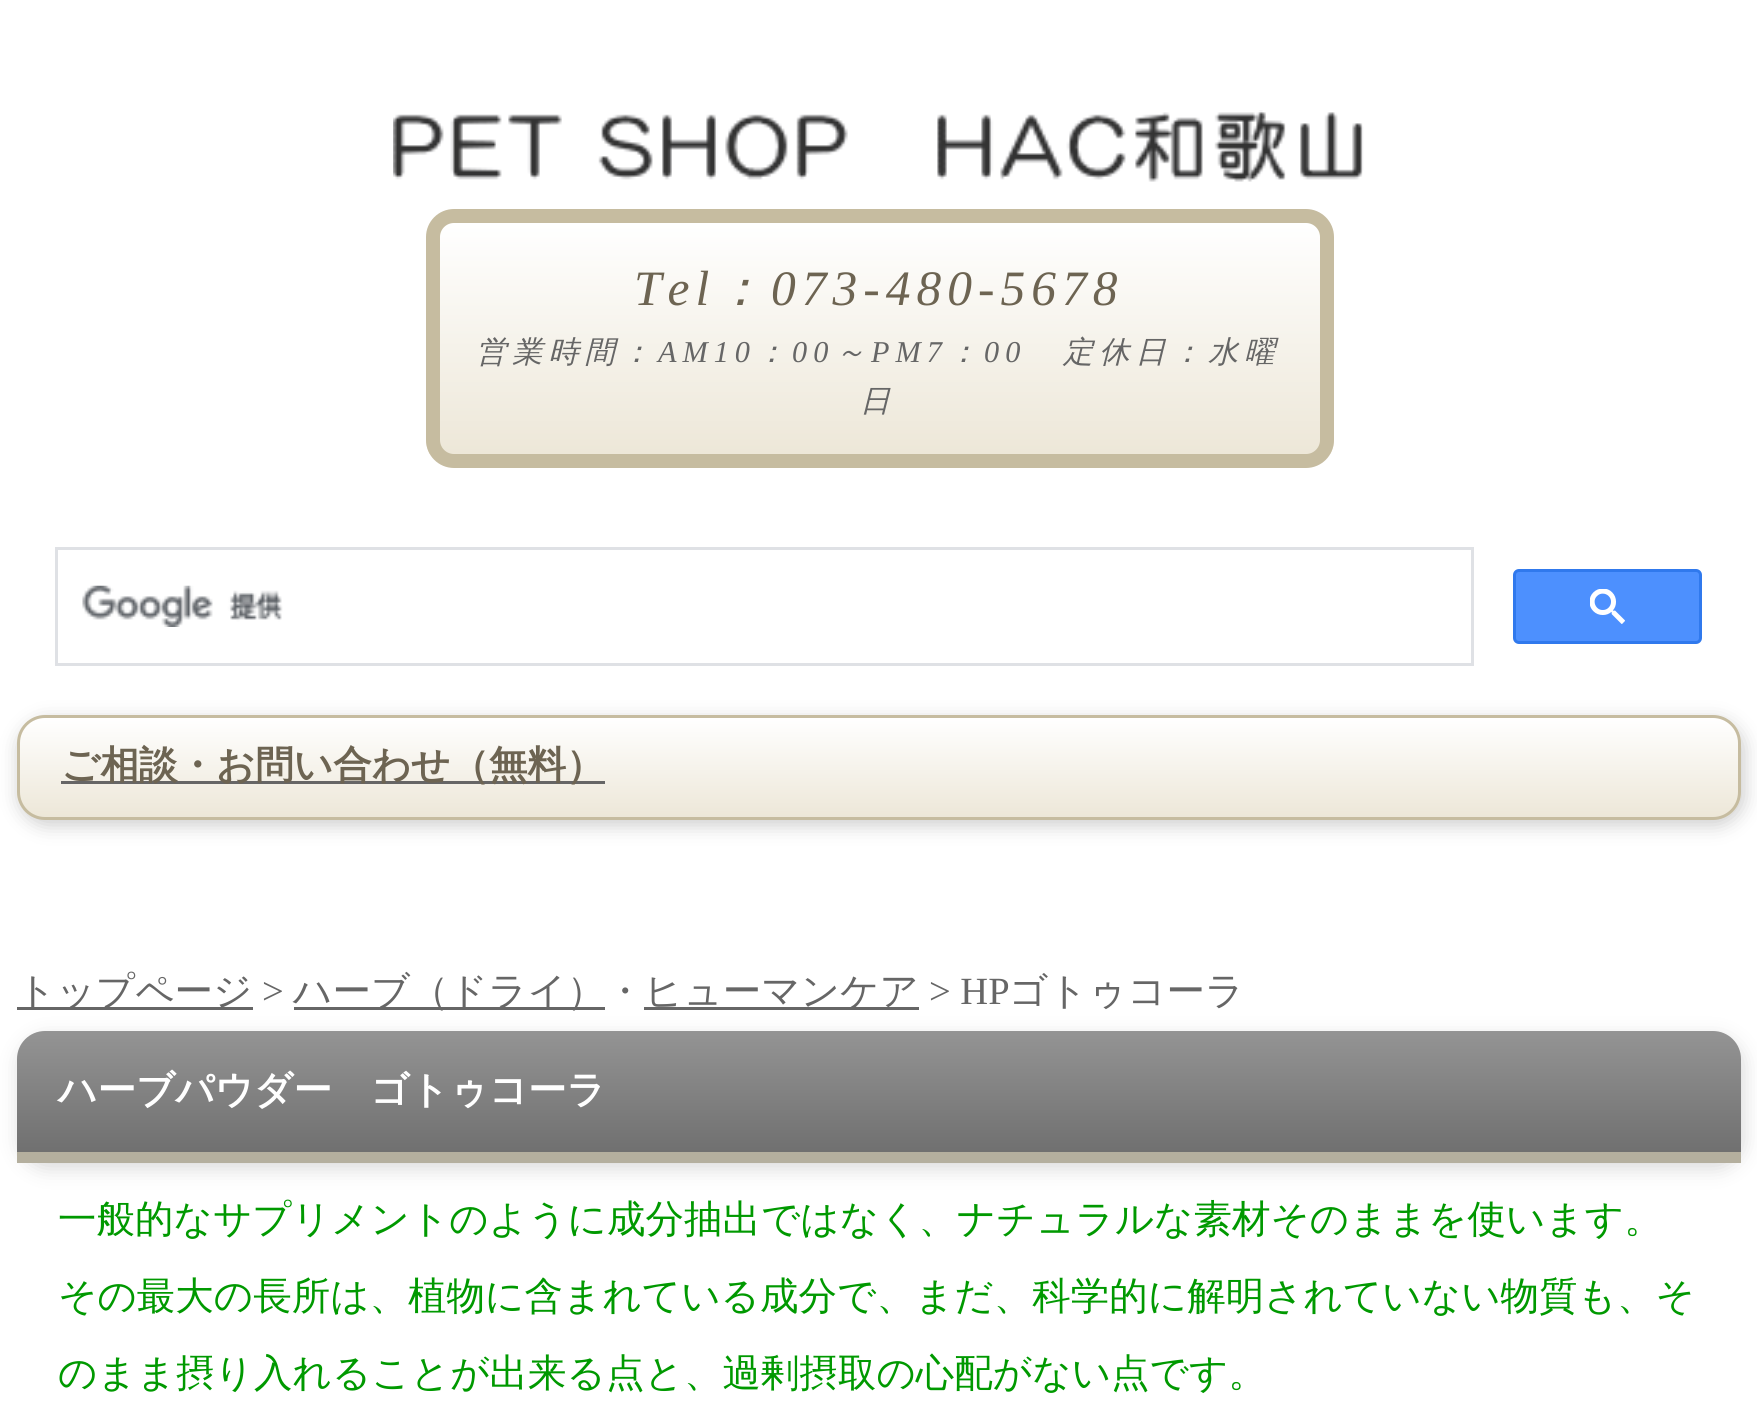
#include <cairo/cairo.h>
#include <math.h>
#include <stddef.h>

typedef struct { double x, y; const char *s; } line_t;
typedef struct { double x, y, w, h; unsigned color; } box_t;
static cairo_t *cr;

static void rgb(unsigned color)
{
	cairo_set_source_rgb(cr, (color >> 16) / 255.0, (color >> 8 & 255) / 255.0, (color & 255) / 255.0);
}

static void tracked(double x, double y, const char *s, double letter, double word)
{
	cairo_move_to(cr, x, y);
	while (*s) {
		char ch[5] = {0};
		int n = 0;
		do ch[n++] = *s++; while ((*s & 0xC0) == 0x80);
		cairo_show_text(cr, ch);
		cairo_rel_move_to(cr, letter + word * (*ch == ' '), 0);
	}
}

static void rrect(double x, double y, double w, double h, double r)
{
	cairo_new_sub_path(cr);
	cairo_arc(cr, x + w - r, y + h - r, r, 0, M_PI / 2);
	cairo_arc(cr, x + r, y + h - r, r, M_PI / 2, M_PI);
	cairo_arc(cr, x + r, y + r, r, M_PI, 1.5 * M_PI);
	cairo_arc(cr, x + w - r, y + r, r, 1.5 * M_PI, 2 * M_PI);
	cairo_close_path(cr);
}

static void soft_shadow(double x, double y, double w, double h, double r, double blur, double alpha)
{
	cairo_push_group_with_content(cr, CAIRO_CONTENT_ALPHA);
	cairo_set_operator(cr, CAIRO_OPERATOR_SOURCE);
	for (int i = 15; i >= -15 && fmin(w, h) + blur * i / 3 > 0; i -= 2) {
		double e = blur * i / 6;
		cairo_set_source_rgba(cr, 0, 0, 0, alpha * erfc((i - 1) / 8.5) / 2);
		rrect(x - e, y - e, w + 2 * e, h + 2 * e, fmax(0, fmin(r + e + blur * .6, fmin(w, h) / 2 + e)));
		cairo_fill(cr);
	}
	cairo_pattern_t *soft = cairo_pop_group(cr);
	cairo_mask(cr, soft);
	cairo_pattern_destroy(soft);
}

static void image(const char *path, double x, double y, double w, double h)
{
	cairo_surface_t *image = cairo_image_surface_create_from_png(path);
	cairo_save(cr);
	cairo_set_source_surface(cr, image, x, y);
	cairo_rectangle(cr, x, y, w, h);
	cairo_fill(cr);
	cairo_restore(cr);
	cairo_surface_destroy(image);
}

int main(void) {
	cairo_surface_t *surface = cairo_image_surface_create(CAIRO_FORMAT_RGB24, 1757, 1407);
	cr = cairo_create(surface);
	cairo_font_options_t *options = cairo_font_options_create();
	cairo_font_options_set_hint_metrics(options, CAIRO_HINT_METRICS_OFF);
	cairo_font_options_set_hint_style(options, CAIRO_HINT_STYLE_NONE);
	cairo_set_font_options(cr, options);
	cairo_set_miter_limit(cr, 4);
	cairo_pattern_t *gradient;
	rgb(0xffffff);
	cairo_paint(cr);
	image("img/1.png", 393, 110, 971, 72);
	cairo_save(cr);
	rrect(426, 209, 908, 259, 28);
	cairo_clip(cr);
	gradient = cairo_pattern_create_linear(880, 223, 880, 454);
	cairo_pattern_add_color_stop_rgba(gradient, 0, 1, 1, 1, 1);
	cairo_pattern_add_color_stop_rgba(gradient, 1, 0.929, 0.906, 0.847, 1);
	cairo_set_source(cr, gradient);
	cairo_pattern_destroy(gradient);
	cairo_rectangle(cr, 426, 223, 908, 231);
	cairo_fill(cr);
	cairo_restore(cr);
	rrect(433, 216, 894, 245, 21);
	rgb(0xc6bca0);
	cairo_set_line_width(cr, 14);
	cairo_stroke(cr);
	cairo_rectangle(cr, 56.5, 548.5, 1416, 116);
	rgb(0xdfe1e5);
	cairo_set_line_width(cr, 3);
	cairo_stroke(cr);
	image("img/2.png", 82, 585, 201, 42);
	rgb(0x4d90fe);
	rrect(1514.5, 570.5, 186, 72, 4.5);
	cairo_fill_preserve(cr);
	rgb(0x3079ed);
	cairo_stroke(cr);
	image("img/3.png", 1590, 589, 35, 35);
	rgb(0xcccccc);
	soft_shadow(19, 721, 1725, 104, 28, 9.5, 1);
	cairo_save(cr);
	rrect(17, 715, 1724, 105, 28);
	cairo_clip(cr);
	gradient = cairo_pattern_create_linear(879, 718, 879, 817);
	cairo_pattern_add_color_stop_rgba(gradient, 0, 1, 1, 1, 1);
	cairo_pattern_add_color_stop_rgba(gradient, 1, 0.929, 0.906, 0.847, 1);
	cairo_set_source(cr, gradient);
	cairo_pattern_destroy(gradient);
	cairo_rectangle(cr, 17, 718, 1724, 99);
	cairo_fill(cr);
	cairo_restore(cr);
	rrect(18.5, 716.5, 1721, 102, 26.5);
	rgb(0xc6bca0);
	cairo_stroke(cr);
	{
		static const box_t items[] = {
			{61, 781, 544, 3, 0x666666},
			{17, 1007, 236, 3, 0x666666},
			{294, 1007, 311, 3, 0x666666},
			{644, 1007, 275, 3, 0x666666},
		};
		for (size_t i = 0; i < sizeof items / sizeof *items; i++) {
			rgb(items[i].color);
			cairo_rectangle(cr, items[i].x, items[i].y, items[i].w, items[i].h);
			cairo_fill(cr);
		}
	}
	rgb(0xdbdbdb);
	soft_shadow(19, 1037, 1725, 132, 28, 9.5, 1);
	gradient = cairo_pattern_create_linear(879, 1031, 879, 1152);
	cairo_pattern_add_color_stop_rgba(gradient, 0, 0.58, 0.58, 0.58, 1);
	cairo_pattern_add_color_stop_rgba(gradient, 1, 0.439, 0.439, 0.439, 1);
	cairo_set_source(cr, gradient);
	cairo_pattern_destroy(gradient);
	cairo_new_path(cr);
	cairo_move_to(cr, 45, 1031);
	cairo_line_to(cr, 1713, 1031);
	cairo_curve_to(cr, 1728.5, 1031, 1741, 1043.5, 1741, 1059);
	cairo_line_to(cr, 1741, 1152);
	cairo_line_to(cr, 17, 1152);
	cairo_line_to(cr, 17, 1059);
	cairo_curve_to(cr, 17, 1043.5, 29.5, 1031, 45, 1031);
	cairo_close_path(cr);
	cairo_fill(cr);
	rgb(0xb4af9e);
	cairo_rectangle(cr, 17, 1152, 1724, 11);
	cairo_fill(cr);
	cairo_select_font_face(cr, "Liberation Serif", CAIRO_FONT_SLANT_ITALIC, CAIRO_FONT_WEIGHT_NORMAL);
	cairo_set_font_size(cr, 49.5);
	rgb(0x6d6452);
	tracked(634, 305, "Tel", 6, 0);
	cairo_select_font_face(cr, "WenQuanYi Zen Hei Medium", CAIRO_FONT_SLANT_ITALIC, CAIRO_FONT_WEIGHT_NORMAL);
	tracked(715, 305, "：", 6, 0);
	cairo_select_font_face(cr, "Liberation Serif", CAIRO_FONT_SLANT_ITALIC, CAIRO_FONT_WEIGHT_NORMAL);
	tracked(771, 305, "073-480-5678", 6, 0);
	cairo_select_font_face(cr, "WenQuanYi Zen Hei Medium", CAIRO_FONT_SLANT_ITALIC, CAIRO_FONT_WEIGHT_NORMAL);
	cairo_set_font_size(cr, 30.25);
	rgb(0x666666);
	tracked(476, 362, "営業時間：", 6, 0);
	cairo_select_font_face(cr, "Liberation Serif", CAIRO_FONT_SLANT_ITALIC, CAIRO_FONT_WEIGHT_NORMAL);
	tracked(658, 362, "AM10", 6, 0);
	cairo_select_font_face(cr, "WenQuanYi Zen Hei Medium", CAIRO_FONT_SLANT_ITALIC, CAIRO_FONT_WEIGHT_NORMAL);
	tracked(756, 362, "：", 6, 0);
	cairo_select_font_face(cr, "Liberation Serif", CAIRO_FONT_SLANT_ITALIC, CAIRO_FONT_WEIGHT_NORMAL);
	tracked(792, 362, "00", 6, 0);
	cairo_select_font_face(cr, "WenQuanYi Zen Hei Medium", CAIRO_FONT_SLANT_ITALIC, CAIRO_FONT_WEIGHT_NORMAL);
	tracked(835, 362, "～", 6, 0);
	cairo_select_font_face(cr, "Liberation Serif", CAIRO_FONT_SLANT_ITALIC, CAIRO_FONT_WEIGHT_NORMAL);
	tracked(871, 362, "PM7", 6, 0);
	cairo_select_font_face(cr, "WenQuanYi Zen Hei Medium", CAIRO_FONT_SLANT_ITALIC, CAIRO_FONT_WEIGHT_NORMAL);
	tracked(948, 362, "：", 6, 0);
	cairo_select_font_face(cr, "Liberation Serif", CAIRO_FONT_SLANT_ITALIC, CAIRO_FONT_WEIGHT_NORMAL);
	tracked(984, 362, "00", 6, 0);
	cairo_select_font_face(cr, "WenQuanYi Zen Hei Medium", CAIRO_FONT_SLANT_ITALIC, CAIRO_FONT_WEIGHT_NORMAL);
	tracked(1063, 362, "定休日：水曜", 6, 0);
	tracked(860, 411, "日", 6, 0);
	cairo_select_font_face(cr, "WenQuanYi Zen Hei", CAIRO_FONT_SLANT_NORMAL, CAIRO_FONT_WEIGHT_BOLD);
	cairo_set_font_size(cr, 38.5);
	rgb(0x6d6452);
	cairo_move_to(cr, 61, 778);
	cairo_show_text(cr, "ご相談・お問い合わせ（無料）");
	cairo_select_font_face(cr, "WenQuanYi Zen Hei Medium", CAIRO_FONT_SLANT_NORMAL, CAIRO_FONT_WEIGHT_NORMAL);
	rgb(0x666666);
	cairo_move_to(cr, 17, 1004);
	cairo_show_text(cr, "トップページ");
	cairo_select_font_face(cr, "Liberation Serif", CAIRO_FONT_SLANT_NORMAL, CAIRO_FONT_WEIGHT_NORMAL);
	cairo_move_to(cr, 262, 1004);
	cairo_show_text(cr, ">");
	cairo_select_font_face(cr, "WenQuanYi Zen Hei Medium", CAIRO_FONT_SLANT_NORMAL, CAIRO_FONT_WEIGHT_NORMAL);
	cairo_move_to(cr, 293, 1004);
	cairo_show_text(cr, "ハーブ（ドライ）・");
	cairo_move_to(cr, 644, 1004);
	cairo_show_text(cr, "ヒューマンケア");
	cairo_select_font_face(cr, "Liberation Serif", CAIRO_FONT_SLANT_NORMAL, CAIRO_FONT_WEIGHT_NORMAL);
	cairo_move_to(cr, 929, 1004);
	cairo_show_text(cr, "> HP");
	cairo_select_font_face(cr, "WenQuanYi Zen Hei Medium", CAIRO_FONT_SLANT_NORMAL, CAIRO_FONT_WEIGHT_NORMAL);
	cairo_move_to(cr, 1009, 1004);
	cairo_show_text(cr, "ゴトゥコーラ");
	cairo_select_font_face(cr, "WenQuanYi Zen Hei", CAIRO_FONT_SLANT_NORMAL, CAIRO_FONT_WEIGHT_BOLD);
	rgb(0xffffff);
	cairo_move_to(cr, 58, 1103);
	cairo_show_text(cr, "ハーブパウダー　ゴトゥコーラ");
	cairo_select_font_face(cr, "WenQuanYi Zen Hei Medium", CAIRO_FONT_SLANT_NORMAL, CAIRO_FONT_WEIGHT_NORMAL);
	rgb(0x009900);
	{
		static const line_t items[] = {
			{58, 1232, "一般的なサプリメントのように成分抽出ではなく、ナチュラルな素材そのままを使います。"},
			{58, 1309, "その最大の長所は、植物に含まれている成分で、まだ、科学的に解明されていない物質も、そ"},
			{58, 1386, "のまま摂り入れることが出来る点と、過剰摂取の心配がない点です。"},
		};
		for (size_t i = 0; i < sizeof items / sizeof *items; i++) {
			cairo_move_to(cr, items[i].x, items[i].y);
			cairo_show_text(cr, items[i].s);
		}
	}
	cairo_surface_write_to_png(surface, "page.png");
	cairo_font_options_destroy(options);
	cairo_destroy(cr);
	cairo_surface_destroy(surface);
	return 0;
}
